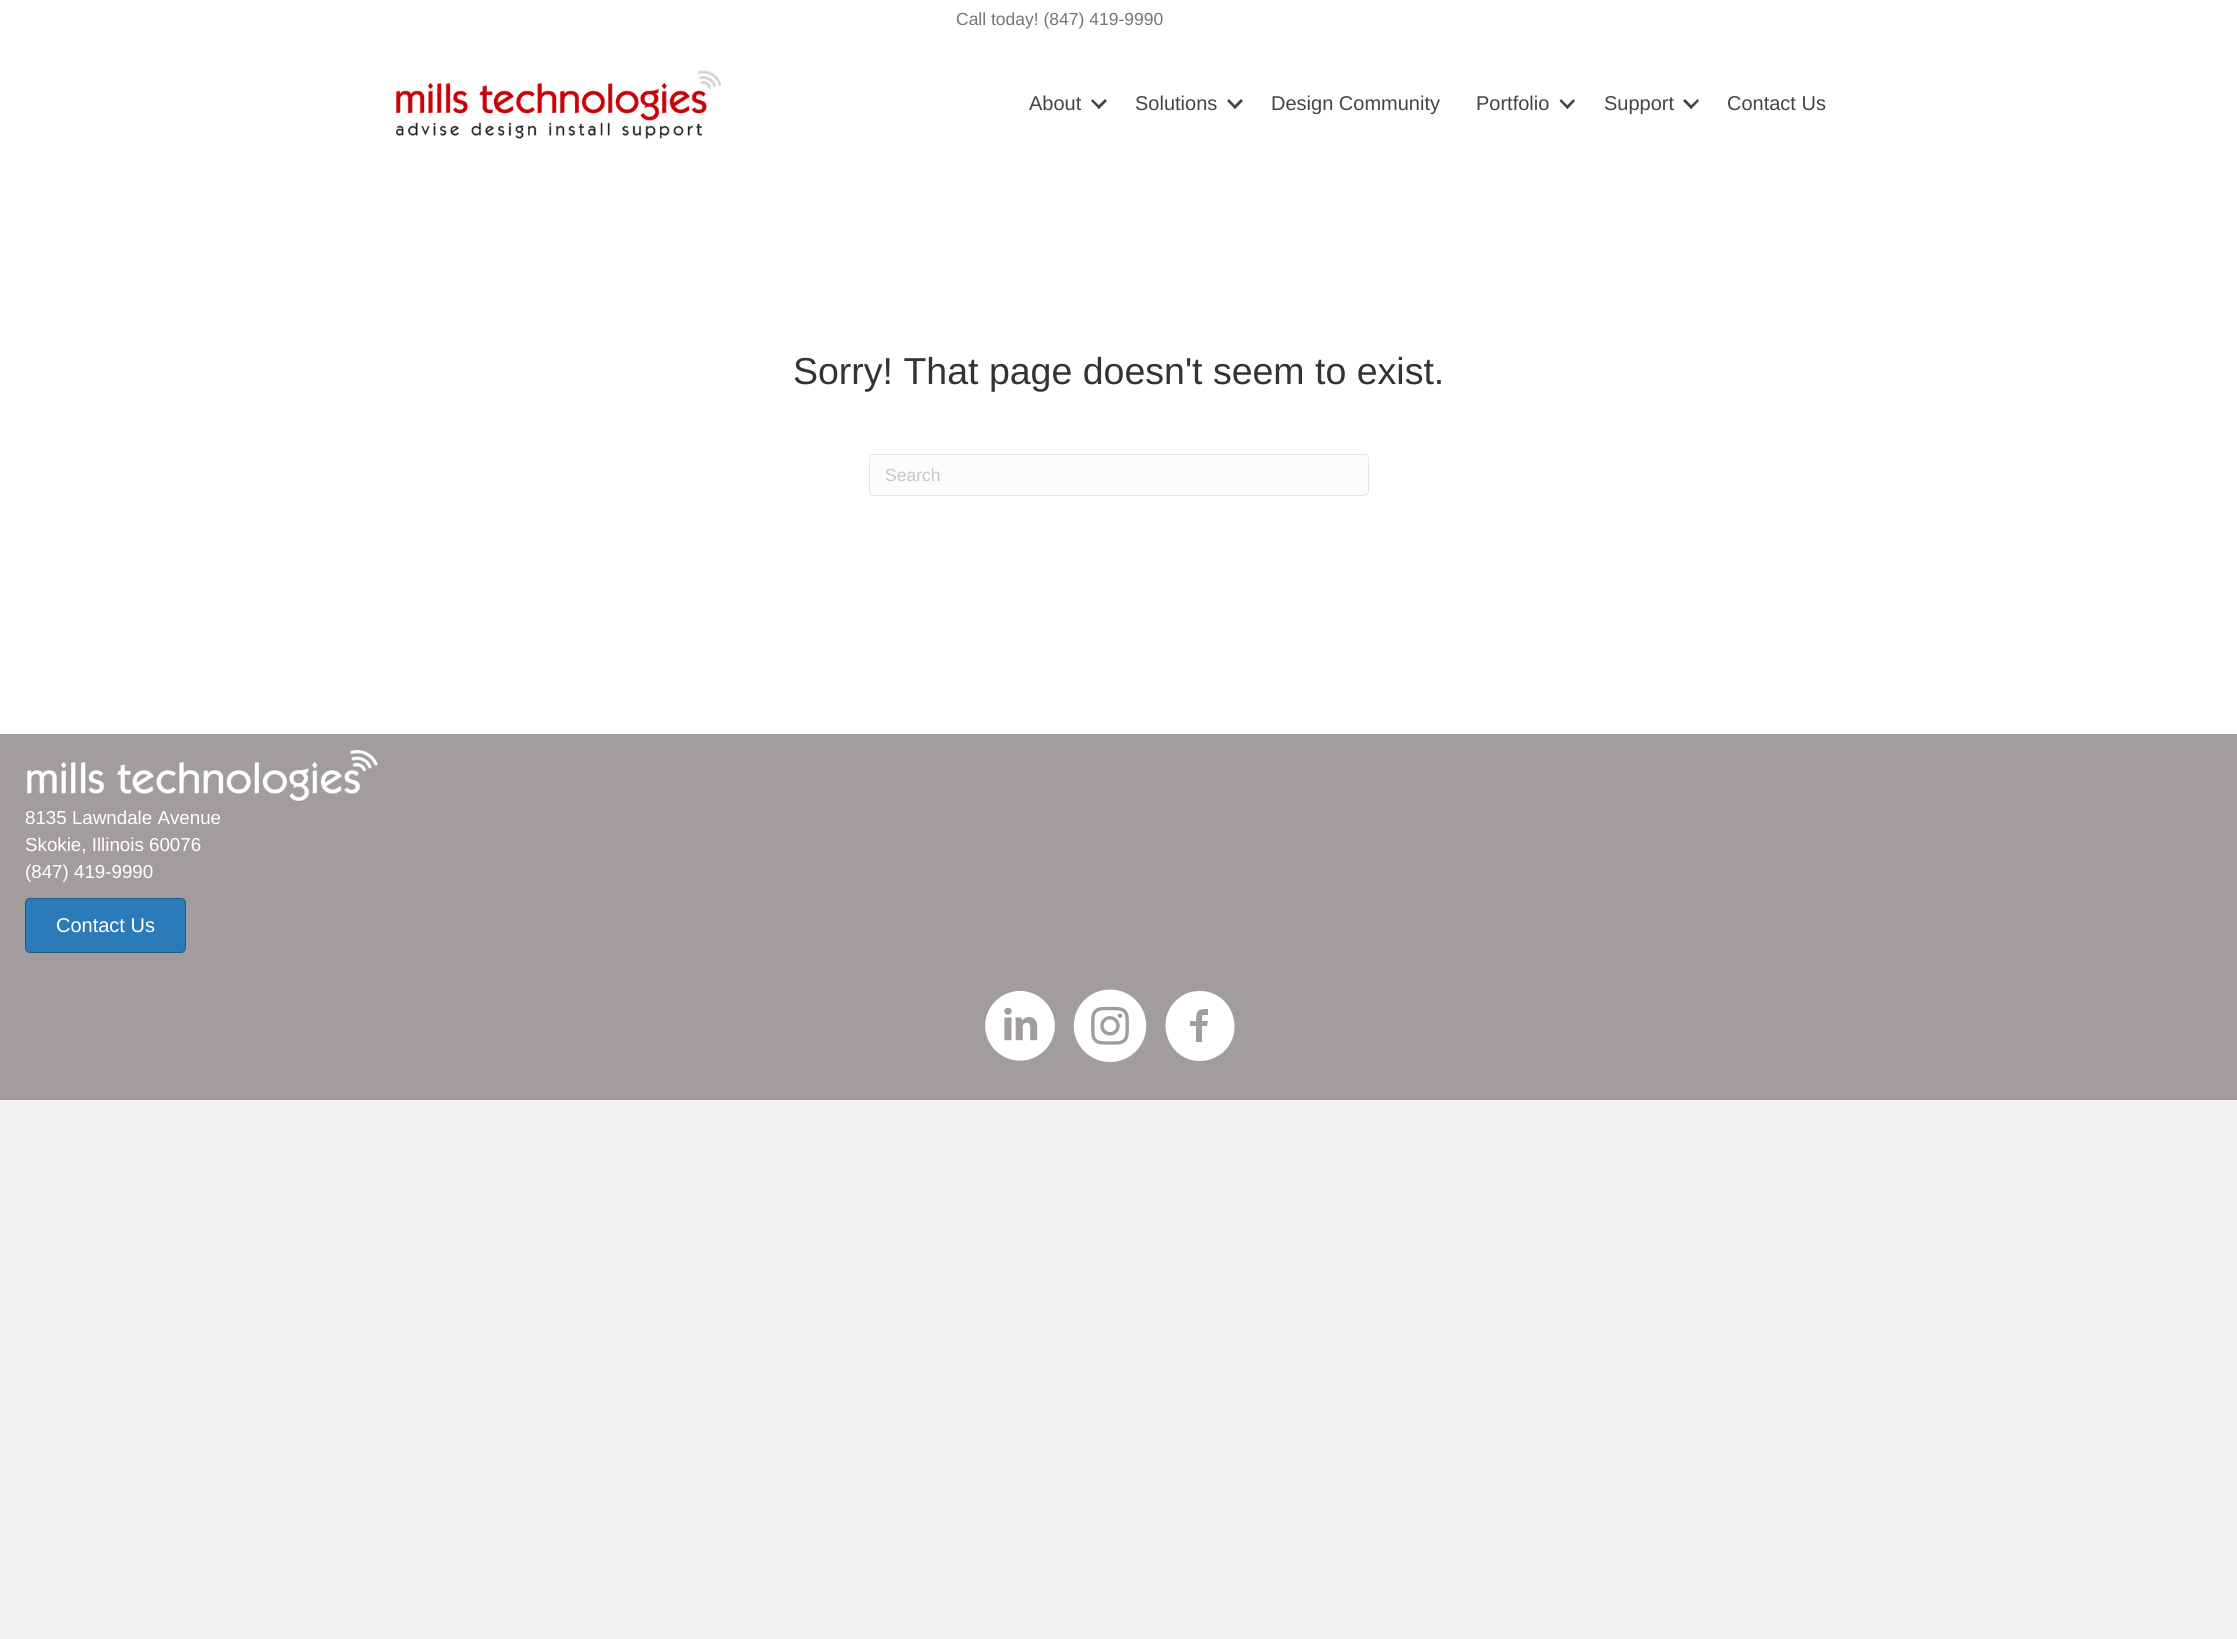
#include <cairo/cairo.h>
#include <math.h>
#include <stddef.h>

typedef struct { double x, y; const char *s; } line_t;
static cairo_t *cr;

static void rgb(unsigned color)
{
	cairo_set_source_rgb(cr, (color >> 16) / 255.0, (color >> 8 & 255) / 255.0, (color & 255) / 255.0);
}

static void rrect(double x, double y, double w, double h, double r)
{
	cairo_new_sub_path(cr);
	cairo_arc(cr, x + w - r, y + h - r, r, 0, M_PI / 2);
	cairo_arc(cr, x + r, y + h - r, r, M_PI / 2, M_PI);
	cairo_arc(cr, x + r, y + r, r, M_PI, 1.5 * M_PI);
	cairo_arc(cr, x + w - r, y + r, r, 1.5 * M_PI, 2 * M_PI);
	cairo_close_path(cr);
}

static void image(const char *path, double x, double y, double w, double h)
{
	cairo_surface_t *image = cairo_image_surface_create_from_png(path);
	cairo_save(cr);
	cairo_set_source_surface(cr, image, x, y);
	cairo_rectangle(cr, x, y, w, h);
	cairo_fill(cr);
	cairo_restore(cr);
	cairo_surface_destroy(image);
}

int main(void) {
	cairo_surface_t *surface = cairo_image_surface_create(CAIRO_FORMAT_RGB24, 2237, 1639);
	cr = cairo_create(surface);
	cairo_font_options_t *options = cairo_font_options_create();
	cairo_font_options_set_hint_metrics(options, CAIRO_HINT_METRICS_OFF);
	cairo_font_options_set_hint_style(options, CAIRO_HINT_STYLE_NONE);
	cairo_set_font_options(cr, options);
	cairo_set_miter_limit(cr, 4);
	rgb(0xf2f2f2);
	cairo_paint(cr);
	rgb(0xffffff);
	cairo_rectangle(cr, 0, 0, 2237, 170);
	cairo_fill(cr);
	image("img/1.png", 396, 70, 326, 69);
	rgb(0x444444);
	cairo_new_path(cr);
	cairo_move_to(cr, 1105, 99);
	cairo_line_to(cr, 1107, 101);
	cairo_line_to(cr, 1099, 109);
	cairo_line_to(cr, 1097, 107);
	cairo_close_path(cr);
	cairo_fill(cr);
	cairo_new_path(cr);
	cairo_move_to(cr, 1092.5, 99);
	cairo_line_to(cr, 1100.5, 107);
	cairo_line_to(cr, 1099, 109);
	cairo_line_to(cr, 1091, 101);
	cairo_close_path(cr);
	cairo_fill(cr);
	cairo_new_path(cr);
	cairo_move_to(cr, 1241, 99);
	cairo_line_to(cr, 1243, 101);
	cairo_line_to(cr, 1235, 109);
	cairo_line_to(cr, 1233, 107);
	cairo_close_path(cr);
	cairo_fill(cr);
	cairo_new_path(cr);
	cairo_move_to(cr, 1229, 99);
	cairo_line_to(cr, 1236.5, 107);
	cairo_line_to(cr, 1235, 109);
	cairo_line_to(cr, 1227, 101);
	cairo_close_path(cr);
	cairo_fill(cr);
	cairo_new_path(cr);
	cairo_move_to(cr, 1573.5, 99);
	cairo_line_to(cr, 1575, 101);
	cairo_line_to(cr, 1567.5, 109);
	cairo_line_to(cr, 1565.5, 107);
	cairo_close_path(cr);
	cairo_fill(cr);
	cairo_new_path(cr);
	cairo_move_to(cr, 1561, 99);
	cairo_line_to(cr, 1569, 107);
	cairo_line_to(cr, 1567.5, 109);
	cairo_line_to(cr, 1559.5, 101);
	cairo_close_path(cr);
	cairo_fill(cr);
	cairo_new_path(cr);
	cairo_move_to(cr, 1697.5, 99);
	cairo_line_to(cr, 1699, 101);
	cairo_line_to(cr, 1691, 109);
	cairo_line_to(cr, 1689.5, 107);
	cairo_close_path(cr);
	cairo_fill(cr);
	cairo_new_path(cr);
	cairo_move_to(cr, 1685, 99);
	cairo_line_to(cr, 1693, 107);
	cairo_line_to(cr, 1691, 109);
	cairo_line_to(cr, 1683, 101);
	cairo_close_path(cr);
	cairo_fill(cr);
	rgb(0xffffff);
	cairo_rectangle(cr, 0, 170, 2237, 564);
	cairo_fill(cr);
	rgb(0xfcfcfc);
	rrect(869.5, 454.5, 499, 41, 4.5);
	cairo_fill_preserve(cr);
	rgb(0xe6e6e6);
	cairo_set_line_width(cr, 1);
	cairo_stroke(cr);
	rgb(0xa19c9e);
	cairo_rectangle(cr, 0, 734, 2237, 366);
	cairo_fill(cr);
	image("img/2.png", 27, 750, 351, 51);
	rgb(0x2b7bb9);
	rrect(25.5, 898.5, 160, 54, 4.5);
	cairo_fill_preserve(cr);
	rgb(0x1f5a87);
	cairo_stroke(cr);
	image("img/3.png", 985, 991, 70, 70);
	image("img/4.png", 1073, 989, 74, 73);
	rgb(0xffffff);
	cairo_new_path(cr);
	cairo_move_to(cr, 1200, 991);
	cairo_curve_to(cr, 1192, 991, 1185, 993, 1179, 998);
	cairo_curve_to(cr, 1153, 1018, 1167, 1061, 1200, 1061);
	cairo_curve_to(cr, 1208, 1061, 1215, 1058, 1221, 1054);
	cairo_curve_to(cr, 1247, 1034, 1233, 991, 1200, 991);
	cairo_close_path(cr);
	cairo_move_to(cr, 1208, 1015);
	cairo_curve_to(cr, 1201, 1015, 1202, 1014, 1202, 1021);
	cairo_line_to(cr, 1208, 1021);
	cairo_line_to(cr, 1207, 1026);
	cairo_line_to(cr, 1202, 1026);
	cairo_line_to(cr, 1202, 1042);
	cairo_line_to(cr, 1196, 1042);
	cairo_line_to(cr, 1196, 1026);
	cairo_line_to(cr, 1190, 1026);
	cairo_line_to(cr, 1190, 1021);
	cairo_line_to(cr, 1196, 1021);
	cairo_curve_to(cr, 1196, 1010, 1198, 1009, 1208, 1009);
	cairo_close_path(cr);
	cairo_fill(cr);
	cairo_select_font_face(cr, "Liberation Sans", CAIRO_FONT_SLANT_NORMAL, CAIRO_FONT_WEIGHT_NORMAL);
	cairo_set_font_size(cr, 17.5);
	rgb(0x757575);
	cairo_move_to(cr, 956, 25);
	cairo_show_text(cr, "Call today! (847) 419-9990");
	cairo_set_font_size(cr, 20);
	rgb(0x444444);
	{
		static const line_t items[] = {
			{1029, 110, "About"},
			{1135, 110, "Solutions"},
			{1271, 110, "Design Community"},
			{1476, 110, "Portfolio"},
			{1604, 110, "Support"},
			{1727, 110, "Contact Us"},
		};
		for (size_t i = 0; i < sizeof items / sizeof *items; i++) {
			cairo_move_to(cr, items[i].x, items[i].y);
			cairo_show_text(cr, items[i].s);
		}
	}
	cairo_set_font_size(cr, 37.5);
	rgb(0x333333);
	cairo_move_to(cr, 793, 384);
	cairo_show_text(cr, "Sorry! That page doesn't seem to exist.");
	cairo_set_font_size(cr, 17.5);
	rgb(0xc6c6c6);
	cairo_move_to(cr, 885, 481);
	cairo_show_text(cr, "Search");
	cairo_set_font_size(cr, 18.75);
	rgb(0xffffff);
	{
		static const line_t items[] = {
			{25, 824, "8135 Lawndale Avenue"},
			{25, 851, "Skokie, Illinois 60076"},
			{25, 878, "(847) 419-9990"},
		};
		for (size_t i = 0; i < sizeof items / sizeof *items; i++) {
			cairo_move_to(cr, items[i].x, items[i].y);
			cairo_show_text(cr, items[i].s);
		}
	}
	cairo_set_font_size(cr, 20);
	cairo_move_to(cr, 56, 932);
	cairo_show_text(cr, "Contact Us");
	cairo_surface_write_to_png(surface, "page.png");
	cairo_font_options_destroy(options);
	cairo_destroy(cr);
	cairo_surface_destroy(surface);
	return 0;
}
